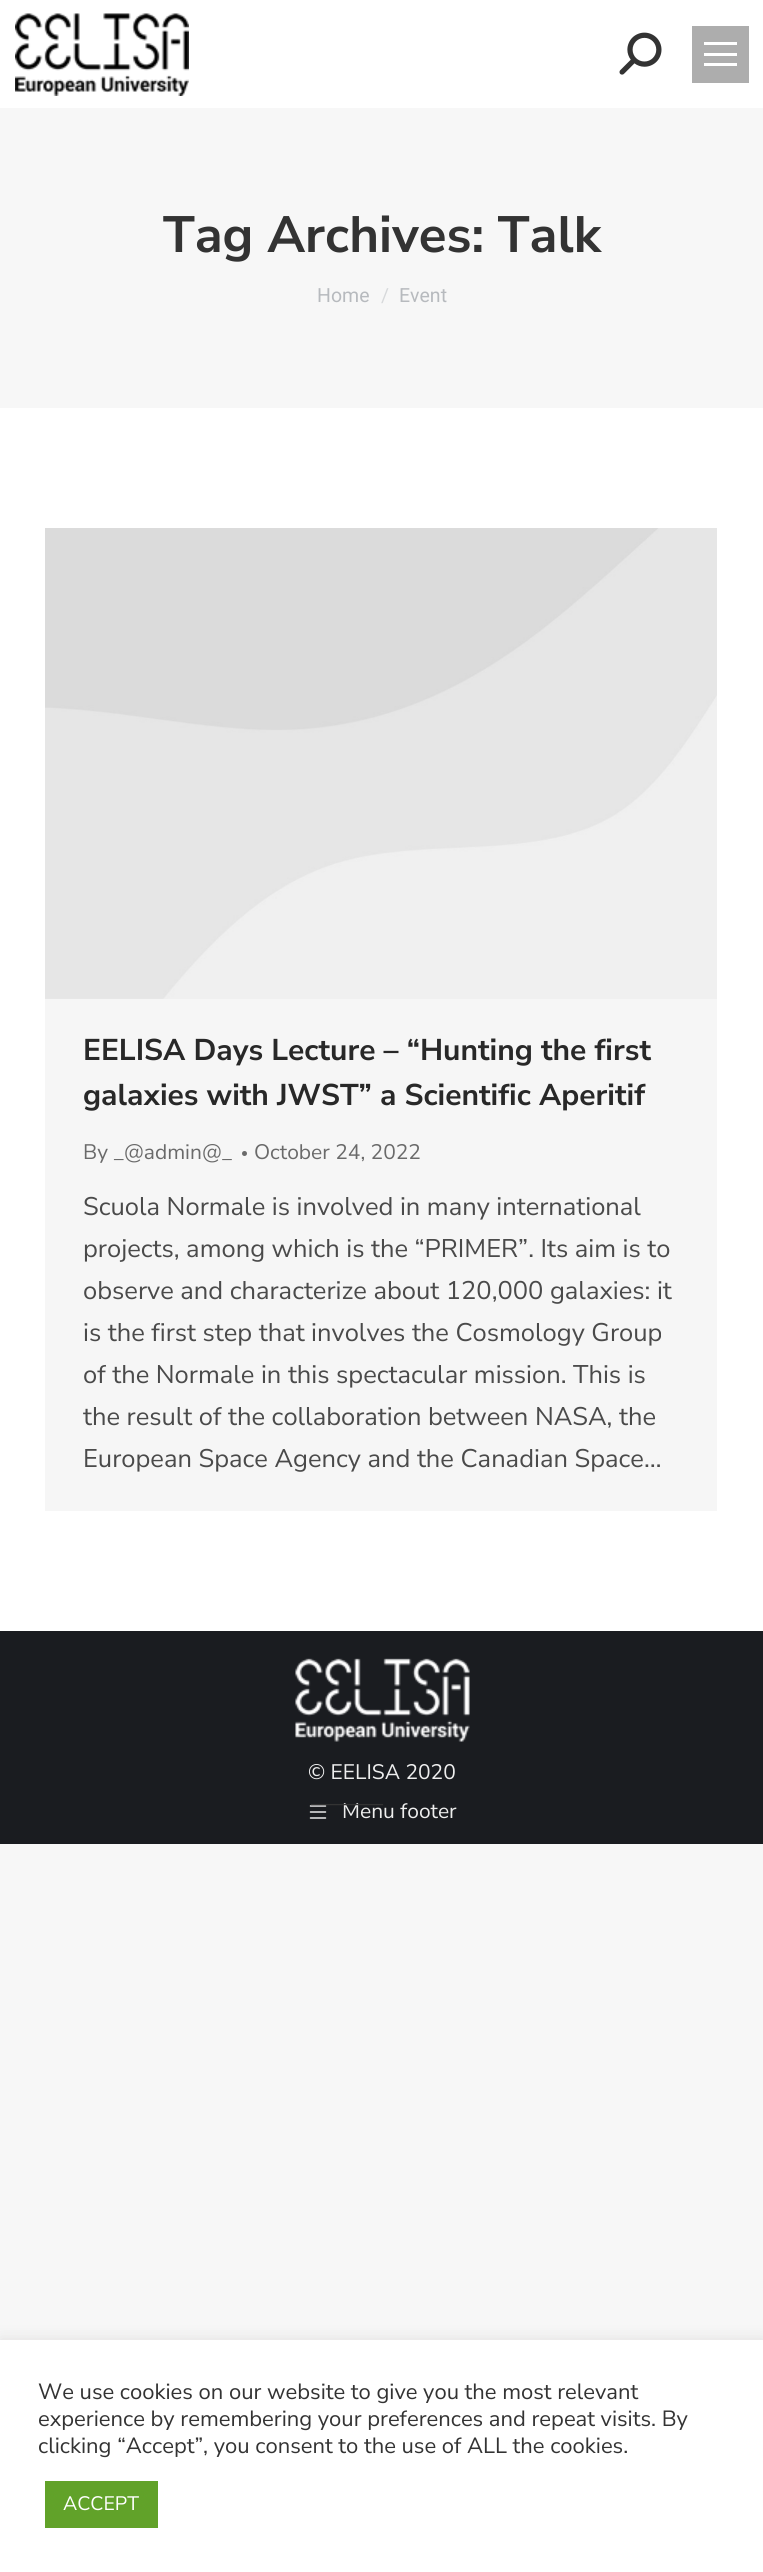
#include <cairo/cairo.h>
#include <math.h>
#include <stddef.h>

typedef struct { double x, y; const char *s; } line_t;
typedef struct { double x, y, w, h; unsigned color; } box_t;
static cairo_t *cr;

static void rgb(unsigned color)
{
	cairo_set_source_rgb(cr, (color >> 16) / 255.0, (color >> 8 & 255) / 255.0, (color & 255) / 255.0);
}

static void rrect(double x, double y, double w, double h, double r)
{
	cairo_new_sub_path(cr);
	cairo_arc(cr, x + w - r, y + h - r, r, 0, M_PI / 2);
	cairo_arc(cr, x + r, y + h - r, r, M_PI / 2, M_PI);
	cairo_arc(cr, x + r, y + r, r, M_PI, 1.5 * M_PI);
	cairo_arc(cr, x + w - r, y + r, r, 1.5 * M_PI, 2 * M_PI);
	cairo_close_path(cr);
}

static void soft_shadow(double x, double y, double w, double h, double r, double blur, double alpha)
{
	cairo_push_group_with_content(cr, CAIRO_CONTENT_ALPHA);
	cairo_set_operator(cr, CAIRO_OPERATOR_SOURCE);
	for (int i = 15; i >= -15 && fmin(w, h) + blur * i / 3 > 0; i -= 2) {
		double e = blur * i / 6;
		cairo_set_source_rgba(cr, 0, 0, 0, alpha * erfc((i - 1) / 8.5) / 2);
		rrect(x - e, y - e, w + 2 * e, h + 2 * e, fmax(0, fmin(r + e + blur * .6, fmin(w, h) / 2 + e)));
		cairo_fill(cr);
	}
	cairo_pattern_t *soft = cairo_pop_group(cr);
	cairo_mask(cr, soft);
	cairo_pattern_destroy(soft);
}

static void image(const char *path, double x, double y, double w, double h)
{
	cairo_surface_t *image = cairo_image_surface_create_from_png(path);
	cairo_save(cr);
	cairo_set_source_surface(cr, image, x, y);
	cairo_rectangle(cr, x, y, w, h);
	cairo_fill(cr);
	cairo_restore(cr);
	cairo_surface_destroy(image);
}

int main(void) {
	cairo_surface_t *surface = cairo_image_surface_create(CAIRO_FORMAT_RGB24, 763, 2572);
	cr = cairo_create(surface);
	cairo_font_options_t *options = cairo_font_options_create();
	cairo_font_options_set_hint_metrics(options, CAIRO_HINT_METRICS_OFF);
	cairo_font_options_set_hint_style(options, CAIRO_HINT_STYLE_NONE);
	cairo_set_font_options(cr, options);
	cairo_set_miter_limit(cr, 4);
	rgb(0xf7f7f7);
	cairo_paint(cr);
	rgb(0xffffff);
	cairo_rectangle(cr, 0, 0, 763, 1631);
	cairo_fill(cr);
	image("img/1.png", 15, 13, 174, 83);
	image("img/2.png", 619, 32, 43, 43);
	{
		static const box_t items[] = {
			{692, 26, 57, 57, 0xadadad},
			{704, 42, 33, 3, 0xffffff},
			{704, 53, 33, 3, 0xffffff},
			{704, 63, 33, 3, 0xffffff},
			{0, 108, 763, 300, 0xf7f7f7},
			{45, 998, 672, 513, 0xf6f6f6},
		};
		for (size_t i = 0; i < sizeof items / sizeof *items; i++) {
			rgb(items[i].color);
			cairo_rectangle(cr, items[i].x, items[i].y, items[i].w, items[i].h);
			cairo_fill(cr);
		}
	}
	image("img/3.png", 45, 528, 672, 471);
	rgb(0x6a6a6a);
	cairo_arc(cr, 244.5, 1153.5, 2.5, 0, 2 * M_PI);
	cairo_fill(cr);
	rgb(0x1a1c20);
	cairo_rectangle(cr, 0, 1631, 763, 213);
	cairo_fill(cr);
	image("img/4.png", 295, 1658, 175, 84);
	image("img/5.png", 309, 1805, 18, 14);
	rgb(0xacabab);
	soft_shadow(0, 2339, 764, 232, 0, 7.5, 0.3);
	rgb(0xffffff);
	cairo_rectangle(cr, 0, 2340, 763, 232);
	cairo_fill(cr);
	rgb(0x61a229);
	cairo_rectangle(cr, 45, 2481, 113, 47);
	cairo_fill(cr);
	cairo_select_font_face(cr, "Nunito Sans", CAIRO_FONT_SLANT_NORMAL, CAIRO_FONT_WEIGHT_BOLD);
	cairo_set_font_size(cr, 51);
	rgb(0x333333);
	cairo_move_to(cr, 163, 252);
	cairo_show_text(cr, "Tag Archives: Talk");
	cairo_select_font_face(cr, "Roboto", CAIRO_FONT_SLANT_NORMAL, CAIRO_FONT_WEIGHT_NORMAL);
	cairo_set_font_size(cr, 19.5);
	rgb(0xb7babe);
	cairo_move_to(cr, 317, 302);
	cairo_show_text(cr, "Home");
	rgb(0xd7d9db);
	cairo_move_to(cr, 381, 302);
	cairo_show_text(cr, "/");
	rgb(0xb7babe);
	cairo_move_to(cr, 399, 302);
	cairo_show_text(cr, "Event");
	cairo_select_font_face(cr, "Nunito Sans", CAIRO_FONT_SLANT_NORMAL, CAIRO_FONT_WEIGHT_BOLD);
	cairo_set_font_size(cr, 30);
	rgb(0x282828);
	cairo_move_to(cr, 83, 1060);
	cairo_show_text(cr, "EELISA Days Lecture – “Hunting the first");
	cairo_move_to(cr, 83, 1105);
	cairo_show_text(cr, "galaxies with JWST” a Scientific Aperitif");
	cairo_select_font_face(cr, "Nunito Sans", CAIRO_FONT_SLANT_NORMAL, CAIRO_FONT_WEIGHT_NORMAL);
	cairo_set_font_size(cr, 21);
	rgb(0x6a6a6a);
	cairo_move_to(cr, 83, 1159);
	cairo_show_text(cr, "By _@admin@_");
	cairo_move_to(cr, 254, 1159);
	cairo_show_text(cr, "October 24, 2022");
	cairo_set_font_size(cr, 25.5);
	rgb(0x4a4a4a);
	{
		static const line_t items[] = {
			{83, 1215, "Scuola Normale is involved in many international"},
			{83, 1257, "projects, among which is the “PRIMER”. Its aim is to"},
			{83, 1299, "observe and characterize about 120,000 galaxies: it"},
			{83, 1341, "is the first step that involves the Cosmology Group"},
			{83, 1383, "of the Normale in this spectacular mission. This is"},
			{83, 1425, "the result of the collaboration between NASA, the"},
			{83, 1467, "European Space Agency and the Canadian Space…"},
		};
		for (size_t i = 0; i < sizeof items / sizeof *items; i++) {
			cairo_move_to(cr, items[i].x, items[i].y);
			cairo_show_text(cr, items[i].s);
		}
	}
	cairo_set_font_size(cr, 21);
	rgb(0xeeeeee);
	cairo_move_to(cr, 308, 1779);
	cairo_show_text(cr, "© EELISA 2020");
	cairo_move_to(cr, 342, 1818);
	cairo_show_text(cr, "Menu footer");
	cairo_set_font_size(cr, 24);
	rgb(0x333333);
	cairo_move_to(cr, 311, 1811);
	cairo_show_text(cr, "———");
	cairo_set_font_size(cr, 22);
	{
		static const line_t items[] = {
			{38, 2399, "We use cookies on our website to give you the most relevant"},
			{38, 2426, "experience by remembering your preferences and repeat visits. By"},
			{38, 2453, "clicking “Accept”, you consent to the use of ALL the cookies."},
		};
		for (size_t i = 0; i < sizeof items / sizeof *items; i++) {
			cairo_move_to(cr, items[i].x, items[i].y);
			cairo_show_text(cr, items[i].s);
		}
	}
	cairo_set_font_size(cr, 19.5);
	rgb(0xffffff);
	cairo_move_to(cr, 63, 2510);
	cairo_show_text(cr, "ACCEPT");
	cairo_surface_write_to_png(surface, "page.png");
	cairo_font_options_destroy(options);
	cairo_destroy(cr);
	cairo_surface_destroy(surface);
	return 0;
}
